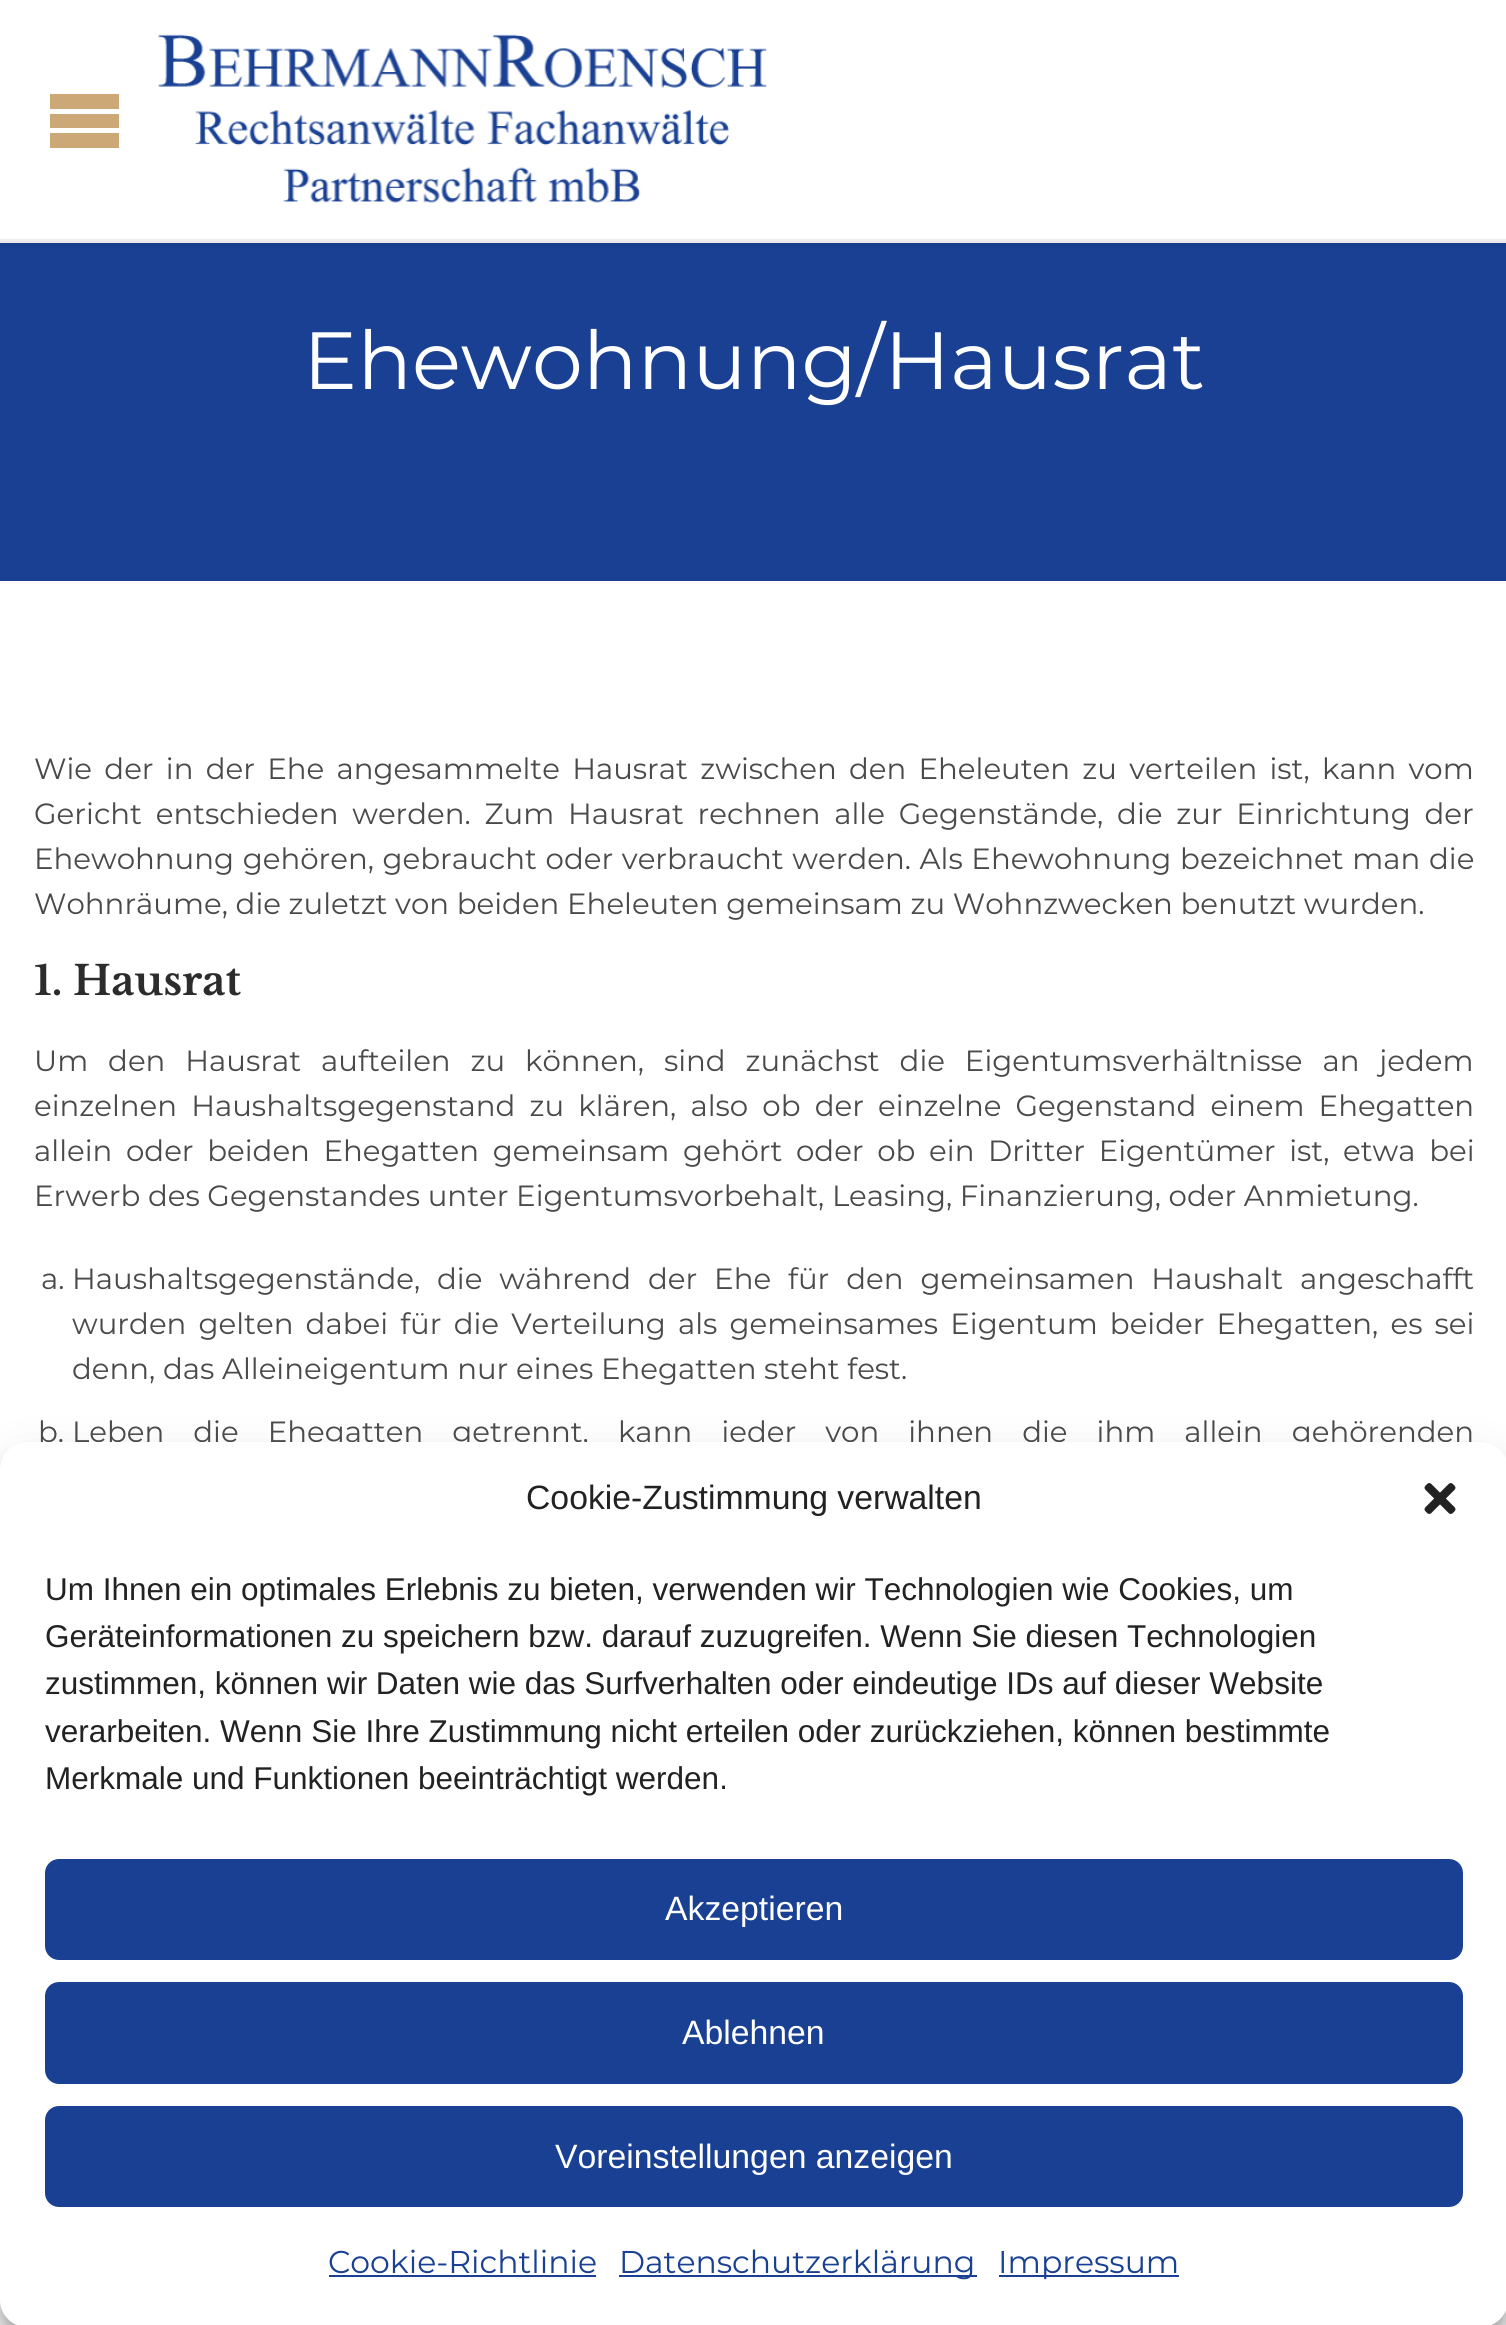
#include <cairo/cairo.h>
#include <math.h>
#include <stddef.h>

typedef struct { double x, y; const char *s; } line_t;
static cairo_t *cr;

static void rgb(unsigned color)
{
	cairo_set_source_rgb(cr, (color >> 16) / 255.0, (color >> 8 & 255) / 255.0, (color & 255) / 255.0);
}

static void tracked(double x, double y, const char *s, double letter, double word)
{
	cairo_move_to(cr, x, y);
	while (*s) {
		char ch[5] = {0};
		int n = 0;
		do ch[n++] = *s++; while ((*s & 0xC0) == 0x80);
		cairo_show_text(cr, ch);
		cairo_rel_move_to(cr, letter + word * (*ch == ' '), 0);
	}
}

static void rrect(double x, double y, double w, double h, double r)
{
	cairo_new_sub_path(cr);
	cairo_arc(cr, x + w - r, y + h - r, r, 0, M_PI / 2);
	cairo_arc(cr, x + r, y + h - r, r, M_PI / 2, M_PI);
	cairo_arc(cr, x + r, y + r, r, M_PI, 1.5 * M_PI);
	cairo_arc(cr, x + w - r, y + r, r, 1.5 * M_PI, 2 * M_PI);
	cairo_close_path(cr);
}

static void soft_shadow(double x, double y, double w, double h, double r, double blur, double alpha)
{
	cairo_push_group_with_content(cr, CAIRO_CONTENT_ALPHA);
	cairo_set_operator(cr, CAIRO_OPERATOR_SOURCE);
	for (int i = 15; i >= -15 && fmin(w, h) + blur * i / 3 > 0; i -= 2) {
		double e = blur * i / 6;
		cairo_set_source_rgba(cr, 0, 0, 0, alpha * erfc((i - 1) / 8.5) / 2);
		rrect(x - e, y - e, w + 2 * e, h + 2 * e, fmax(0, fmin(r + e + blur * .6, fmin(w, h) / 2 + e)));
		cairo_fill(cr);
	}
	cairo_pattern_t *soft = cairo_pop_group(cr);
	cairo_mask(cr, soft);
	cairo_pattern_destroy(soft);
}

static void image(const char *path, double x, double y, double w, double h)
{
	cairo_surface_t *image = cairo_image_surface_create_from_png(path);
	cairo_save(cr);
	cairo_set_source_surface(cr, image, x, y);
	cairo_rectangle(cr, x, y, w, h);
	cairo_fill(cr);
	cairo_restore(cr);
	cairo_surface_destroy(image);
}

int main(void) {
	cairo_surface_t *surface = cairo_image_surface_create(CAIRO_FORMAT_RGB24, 1506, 2325);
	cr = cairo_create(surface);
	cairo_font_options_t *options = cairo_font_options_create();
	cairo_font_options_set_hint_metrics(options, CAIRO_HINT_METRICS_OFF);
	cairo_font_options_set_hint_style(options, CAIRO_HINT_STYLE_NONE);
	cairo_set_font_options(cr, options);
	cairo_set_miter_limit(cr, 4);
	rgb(0xffffff);
	cairo_paint(cr);
	rgb(0x194093);
	cairo_rectangle(cr, 0, 243, 1506, 338);
	cairo_fill(cr);
	rgb(0x000000);
	soft_shadow(0, 5, 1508, 243, 0, 2, 0.04);
	rgb(0xffffff);
	cairo_rectangle(cr, 0, 4, 1506, 235);
	cairo_fill(cr);
	rgb(0xcca876);
	cairo_new_path(cr);
	cairo_move_to(cr, 50, 94);
	cairo_line_to(cr, 119, 94);
	cairo_line_to(cr, 119, 109);
	cairo_line_to(cr, 50, 109);
	cairo_close_path(cr);
	cairo_move_to(cr, 50, 114);
	cairo_line_to(cr, 119, 114);
	cairo_line_to(cr, 119, 128);
	cairo_line_to(cr, 50, 128);
	cairo_close_path(cr);
	cairo_move_to(cr, 50, 133);
	cairo_line_to(cr, 119, 133);
	cairo_line_to(cr, 119, 148);
	cairo_line_to(cr, 50, 148);
	cairo_close_path(cr);
	cairo_fill(cr);
	rgb(0xe8e8e8);
	cairo_rectangle(cr, 0, 241, 1506, 2);
	cairo_fill(cr);
	rgb(0xededed);
	cairo_rectangle(cr, 0, 239, 1506, 2);
	cairo_fill(cr);
	image("img/1.png", 158, 34, 609, 169);
	rgb(0x000000);
	soft_shadow(0, 1456, 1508, 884, 27, 7, 0.23);
	soft_shadow(0, 1465, 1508, 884, 27, 22.5, 0.19);
	cairo_select_font_face(cr, "Montserrat", CAIRO_FONT_SLANT_NORMAL, CAIRO_FONT_WEIGHT_NORMAL);
	cairo_set_font_size(cr, 81);
	rgb(0xffffff);
	cairo_move_to(cr, 303, 389);
	cairo_show_text(cr, "Ehewohnung/Hausrat");
	cairo_set_font_size(cr, 29.25);
	rgb(0x4a4a4a);
	tracked(34, 779, "Wie der in der Ehe angesammelte Hausrat zwischen den Eheleuten zu verteilen ist, kann vom", 0, 4.6);
	tracked(34, 824, "Gericht entschieden werden. Zum Hausrat rechnen alle Gegenstände, die zur Einrichtung der", 0, 6.1);
	tracked(34, 869, "Ehewohnung gehören, gebraucht oder verbraucht werden. Als Ehewohnung bezeichnet man die", 0, 1);
	cairo_move_to(cr, 34, 914);
	cairo_show_text(cr, "Wohnräume, die zuletzt von beiden Eheleuten gemeinsam zu Wohnzwecken benutzt wurden.");
	cairo_select_font_face(cr, "Libre Baskerville", CAIRO_FONT_SLANT_NORMAL, CAIRO_FONT_WEIGHT_BOLD);
	cairo_set_font_size(cr, 40.5);
	rgb(0x2c2c2c);
	cairo_move_to(cr, 34, 995);
	cairo_show_text(cr, "1. Hausrat");
	cairo_select_font_face(cr, "Montserrat", CAIRO_FONT_SLANT_NORMAL, CAIRO_FONT_WEIGHT_NORMAL);
	cairo_set_font_size(cr, 29.25);
	rgb(0x4a4a4a);
	tracked(34, 1071, "Um den Hausrat aufteilen zu können, sind zunächst die Eigentumsverhältnisse an jedem", 0, 12.25);
	tracked(34, 1116, "einzelnen Haushaltsgegenstand zu klären, also ob der einzelne Gegenstand einem Ehegatten", 0, 6.5);
	tracked(34, 1161, "allein oder beiden Ehegatten gemeinsam gehört oder ob ein Dritter Eigentümer ist, etwa bei", 0, 6);
	cairo_move_to(cr, 34, 1206);
	cairo_show_text(cr, "Erwerb des Gegenstandes unter Eigentumsvorbehalt, Leasing, Finanzierung, oder Anmietung.");
	cairo_move_to(cr, 41, 1289);
	cairo_show_text(cr, "a.");
	tracked(72, 1289, "Haushaltsgegenstände, die während der Ehe für den gemeinsamen Haushalt angeschafft", 0, 9.25);
	tracked(72, 1334, "wurden gelten dabei für die Verteilung als gemeinsames Eigentum beider Ehegatten, es sei", 0, 4.5);
	cairo_move_to(cr, 72, 1379);
	cairo_show_text(cr, "denn, das Alleineigentum nur eines Ehegatten steht fest.");
	cairo_move_to(cr, 38, 1442);
	cairo_show_text(cr, "b.");
	tracked(72, 1442, "Leben die Ehegatten getrennt, kann jeder von ihnen die ihm allein gehörenden", 0, 21.4);
	rgb(0xffffff);
	rrect(0, 1442, 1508, 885, 27);
	cairo_fill(cr);
	cairo_select_font_face(cr, "Liberation Sans", CAIRO_FONT_SLANT_NORMAL, CAIRO_FONT_WEIGHT_NORMAL);
	cairo_set_font_size(cr, 33.75);
	rgb(0x222222);
	cairo_move_to(cr, 526, 1509);
	cairo_show_text(cr, "Cookie-Zustimmung verwalten");
	image("img/2.png", 1424, 1483, 32, 31);
	cairo_set_font_size(cr, 31.5);
	{
		static const line_t items[] = {
			{45, 1600, "Um Ihnen ein optimales Erlebnis zu bieten, verwenden wir Technologien wie Cookies, um"},
			{45, 1647, "Geräteinformationen zu speichern bzw. darauf zuzugreifen. Wenn Sie diesen Technologien"},
			{45, 1694, "zustimmen, können wir Daten wie das Surfverhalten oder eindeutige IDs auf dieser Website"},
			{45, 1742, "verarbeiten. Wenn Sie Ihre Zustimmung nicht erteilen oder zurückziehen, können bestimmte"},
			{45, 1789, "Merkmale und Funktionen beeinträchtigt werden."},
		};
		for (size_t i = 0; i < sizeof items / sizeof *items; i++) {
			cairo_move_to(cr, items[i].x, items[i].y);
			cairo_show_text(cr, items[i].s);
		}
	}
	rgb(0x194093);
	rrect(46, 1860, 1416, 99, 13);
	cairo_fill_preserve(cr);
	cairo_stroke(cr);
	cairo_set_font_size(cr, 33.75);
	rgb(0xffffff);
	cairo_move_to(cr, 665, 1920);
	cairo_show_text(cr, "Akzeptieren");
	rgb(0x194093);
	rrect(46, 1983, 1416, 100, 13);
	cairo_fill_preserve(cr);
	cairo_stroke(cr);
	rgb(0xffffff);
	cairo_move_to(cr, 682, 2044);
	cairo_show_text(cr, "Ablehnen");
	rgb(0x194093);
	rrect(46, 2107, 1416, 99, 13);
	cairo_fill_preserve(cr);
	cairo_stroke(cr);
	rgb(0xffffff);
	cairo_move_to(cr, 555, 2168);
	cairo_show_text(cr, "Voreinstellungen anzeigen");
	cairo_select_font_face(cr, "Montserrat", CAIRO_FONT_SLANT_NORMAL, CAIRO_FONT_WEIGHT_NORMAL);
	cairo_set_font_size(cr, 31.5);
	rgb(0x194093);
	cairo_move_to(cr, 328, 2273);
	cairo_show_text(cr, "Cookie-Richtlinie");
	cairo_rectangle(cr, 329, 2275, 267, 2);
	cairo_fill(cr);
	cairo_rectangle(cr, 619, 2275, 358, 2);
	cairo_fill(cr);
	cairo_move_to(cr, 619, 2273);
	cairo_show_text(cr, "Datenschutzerklärung");
	cairo_rectangle(cr, 999, 2275, 180, 2);
	cairo_fill(cr);
	cairo_move_to(cr, 998, 2273);
	cairo_show_text(cr, "Impressum");
	cairo_surface_write_to_png(surface, "page.png");
	cairo_font_options_destroy(options);
	cairo_destroy(cr);
	cairo_surface_destroy(surface);
	return 0;
}
